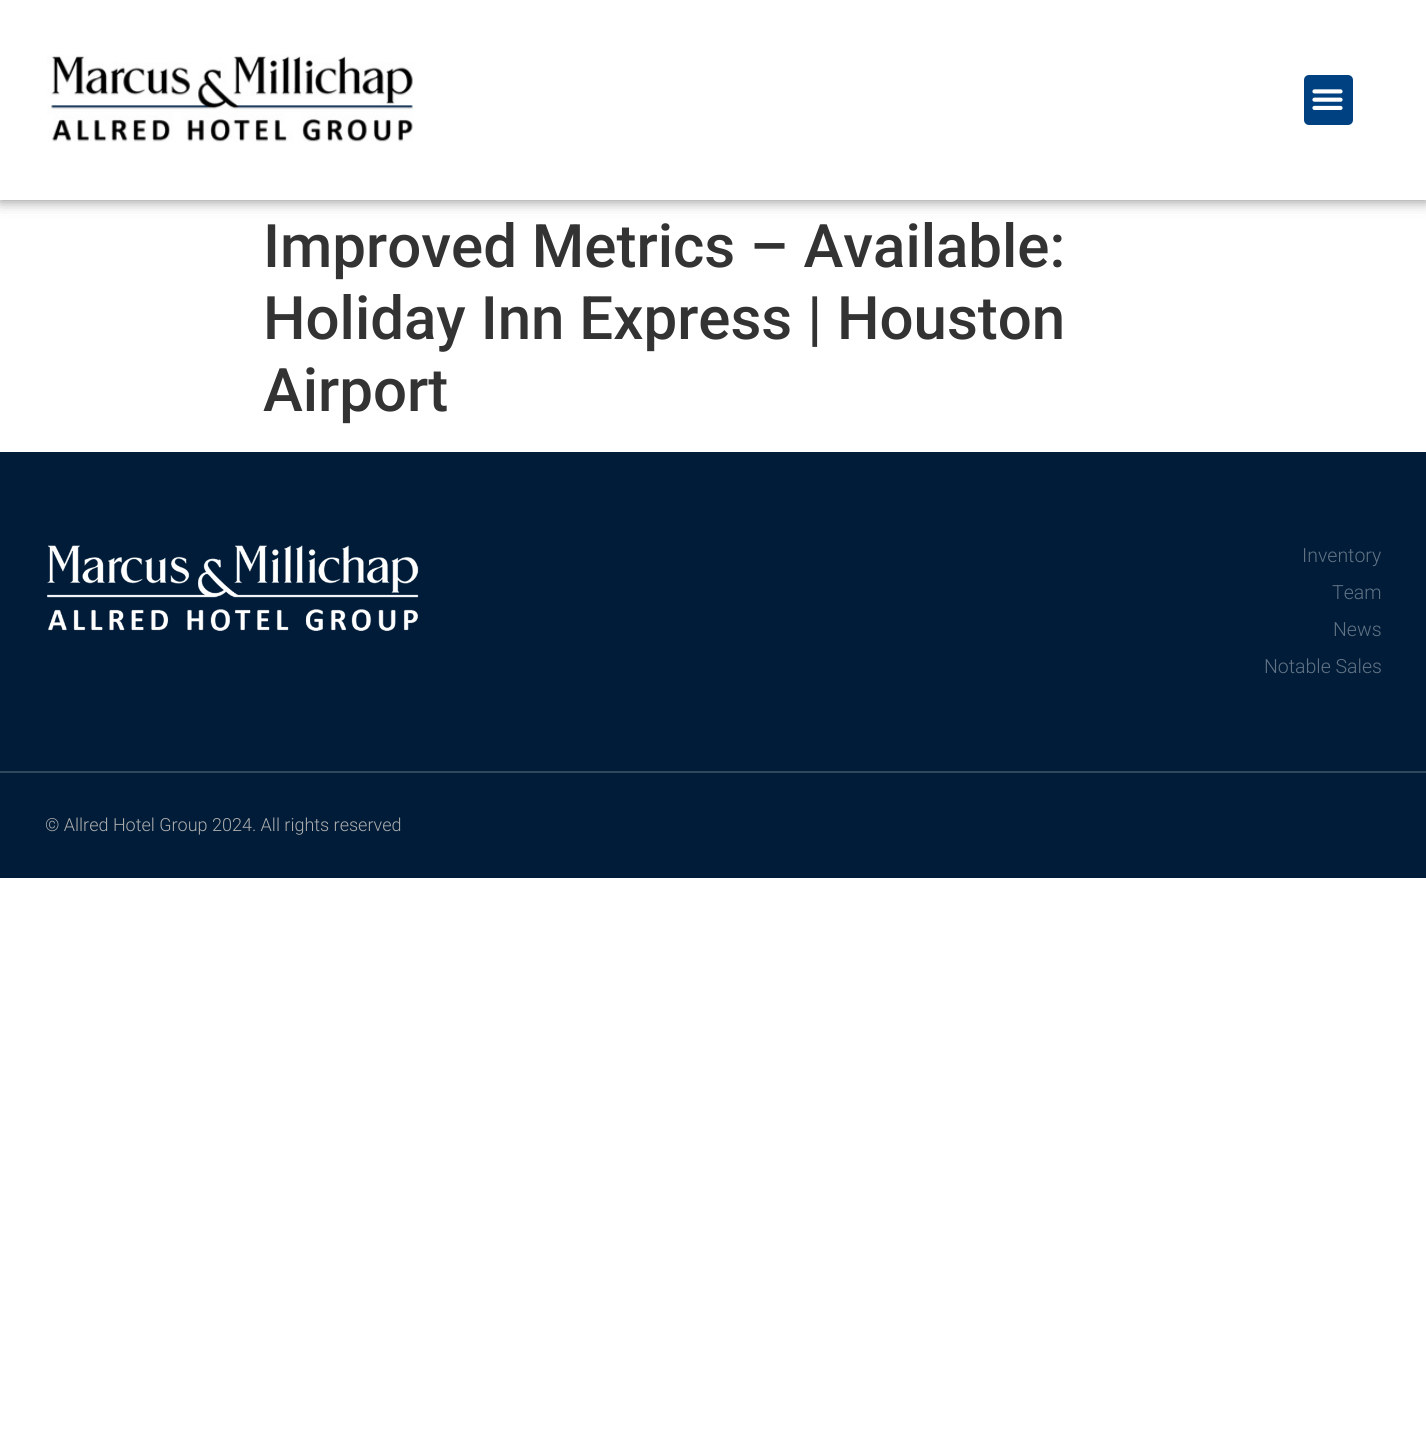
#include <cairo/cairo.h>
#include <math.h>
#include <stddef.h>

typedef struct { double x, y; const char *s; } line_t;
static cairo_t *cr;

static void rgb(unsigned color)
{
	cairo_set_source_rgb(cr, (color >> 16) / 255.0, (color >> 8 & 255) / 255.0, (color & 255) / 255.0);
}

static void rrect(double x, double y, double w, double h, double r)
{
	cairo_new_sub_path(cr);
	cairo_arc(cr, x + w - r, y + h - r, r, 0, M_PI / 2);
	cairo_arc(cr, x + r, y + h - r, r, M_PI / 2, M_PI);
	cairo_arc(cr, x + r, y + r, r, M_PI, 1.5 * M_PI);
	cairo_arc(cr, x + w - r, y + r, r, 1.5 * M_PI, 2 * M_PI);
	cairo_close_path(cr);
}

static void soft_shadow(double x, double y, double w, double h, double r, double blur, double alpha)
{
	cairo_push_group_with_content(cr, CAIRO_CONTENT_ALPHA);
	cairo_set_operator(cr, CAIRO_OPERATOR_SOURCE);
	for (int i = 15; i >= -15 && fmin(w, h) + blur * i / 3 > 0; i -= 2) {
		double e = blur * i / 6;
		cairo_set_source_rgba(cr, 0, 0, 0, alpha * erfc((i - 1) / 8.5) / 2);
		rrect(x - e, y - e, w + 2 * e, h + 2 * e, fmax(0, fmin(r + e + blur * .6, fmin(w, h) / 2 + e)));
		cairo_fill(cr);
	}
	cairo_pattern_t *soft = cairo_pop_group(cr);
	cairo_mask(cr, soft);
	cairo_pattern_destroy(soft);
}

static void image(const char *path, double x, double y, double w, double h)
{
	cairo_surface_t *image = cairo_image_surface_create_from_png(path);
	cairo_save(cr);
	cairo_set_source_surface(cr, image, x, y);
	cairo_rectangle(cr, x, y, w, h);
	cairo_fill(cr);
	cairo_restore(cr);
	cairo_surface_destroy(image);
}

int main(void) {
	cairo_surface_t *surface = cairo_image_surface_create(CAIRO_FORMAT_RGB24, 1426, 1448);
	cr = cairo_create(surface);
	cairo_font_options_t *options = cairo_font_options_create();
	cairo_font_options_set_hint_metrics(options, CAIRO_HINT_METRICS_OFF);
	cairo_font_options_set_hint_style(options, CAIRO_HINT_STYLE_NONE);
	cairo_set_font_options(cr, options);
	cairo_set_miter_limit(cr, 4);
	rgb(0xffffff);
	cairo_paint(cr);
	rgb(0x000000);
	soft_shadow(0, 0, 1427, 200, 0, 7.5, 0.5);
	rgb(0xffffff);
	cairo_rectangle(cr, 0, 0, 1426, 200);
	cairo_fill(cr);
	image("img/1.png", 47, 55, 367, 87);
	rgb(0x004281);
	rrect(1304, 75, 49, 50, 5);
	cairo_fill(cr);
	image("img/2.png", 1312, 89, 31, 21);
	rgb(0x001c38);
	cairo_rectangle(cr, 0, 452, 1426, 319);
	cairo_fill(cr);
	image("img/3.png", 47, 545, 372, 86);
	cairo_rectangle(cr, 0, 773, 1426, 105);
	cairo_fill(cr);
	rgb(0x30475e);
	cairo_rectangle(cr, 0, 771, 1426, 2);
	cairo_fill(cr);
	cairo_select_font_face(cr, "Roboto Medium", CAIRO_FONT_SLANT_NORMAL, CAIRO_FONT_WEIGHT_NORMAL);
	cairo_set_font_size(cr, 60);
	rgb(0x333333);
	{
		static const line_t items[] = {
			{263, 267, "Improved Metrics – Available:"},
			{263, 339, "Holiday Inn Express | Houston"},
			{263, 411, "Airport"},
		};
		for (size_t i = 0; i < sizeof items / sizeof *items; i++) {
			cairo_move_to(cr, items[i].x, items[i].y);
			cairo_show_text(cr, items[i].s);
		}
	}
	cairo_select_font_face(cr, "Roboto Light", CAIRO_FONT_SLANT_NORMAL, CAIRO_FONT_WEIGHT_NORMAL);
	cairo_set_font_size(cr, 19.5);
	rgb(0x617284);
	{
		static const line_t items[] = {
			{1302, 562, "Inventory"},
			{1332, 599, "Team"},
			{1333, 636, "News"},
			{1264, 673, "Notable Sales"},
		};
		for (size_t i = 0; i < sizeof items / sizeof *items; i++) {
			cairo_move_to(cr, items[i].x, items[i].y);
			cairo_show_text(cr, items[i].s);
		}
	}
	cairo_set_font_size(cr, 18);
	rgb(0xadadad);
	cairo_move_to(cr, 45, 831);
	cairo_show_text(cr, "© Allred Hotel Group 2024. All rights reserved");
	cairo_surface_write_to_png(surface, "page.png");
	cairo_font_options_destroy(options);
	cairo_destroy(cr);
	cairo_surface_destroy(surface);
	return 0;
}
